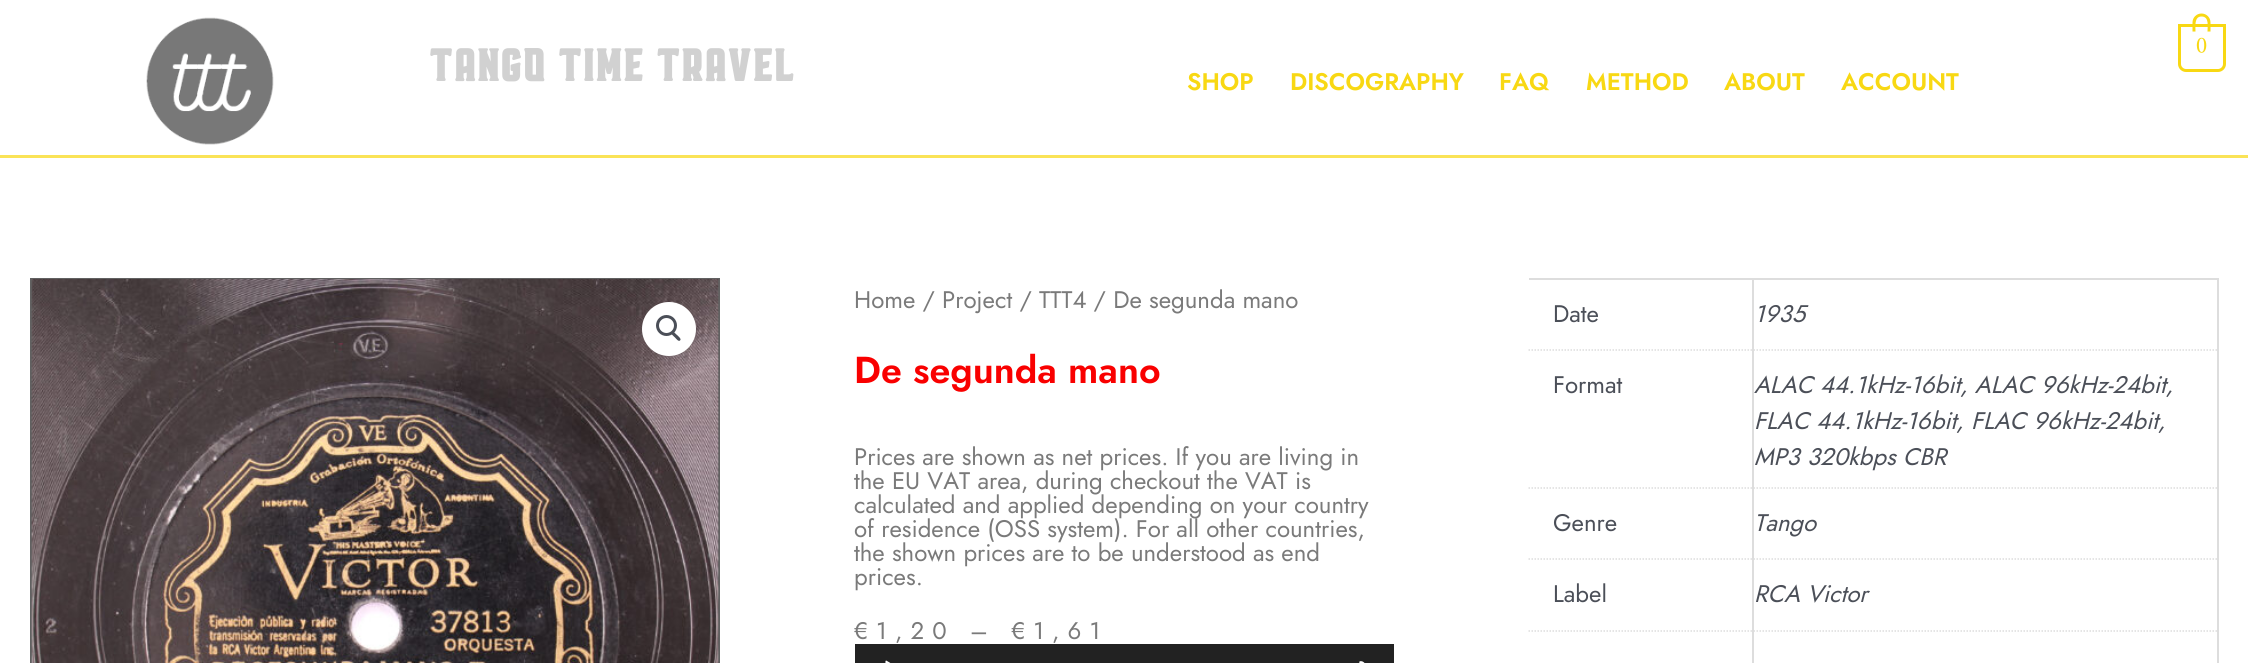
#include <cairo/cairo.h>
#include <math.h>
#include <stddef.h>

typedef struct { double x, y; const char *s; } line_t;
static cairo_t *cr;

static void rgb(unsigned color)
{
	cairo_set_source_rgb(cr, (color >> 16) / 255.0, (color >> 8 & 255) / 255.0, (color & 255) / 255.0);
}

static void tracked(double x, double y, const char *s, double letter, double word)
{
	cairo_move_to(cr, x, y);
	while (*s) {
		char ch[5] = {0};
		int n = 0;
		do ch[n++] = *s++; while ((*s & 0xC0) == 0x80);
		cairo_show_text(cr, ch);
		cairo_rel_move_to(cr, letter + word * (*ch == ' '), 0);
	}
}

static void image(const char *path, double x, double y, double w, double h)
{
	cairo_surface_t *image = cairo_image_surface_create_from_png(path);
	cairo_save(cr);
	cairo_set_source_surface(cr, image, x, y);
	cairo_rectangle(cr, x, y, w, h);
	cairo_fill(cr);
	cairo_restore(cr);
	cairo_surface_destroy(image);
}

int main(void) {
	cairo_surface_t *surface = cairo_image_surface_create(CAIRO_FORMAT_RGB24, 2248, 663);
	cr = cairo_create(surface);
	cairo_font_options_t *options = cairo_font_options_create();
	cairo_font_options_set_hint_metrics(options, CAIRO_HINT_METRICS_OFF);
	cairo_font_options_set_hint_style(options, CAIRO_HINT_STYLE_NONE);
	cairo_set_font_options(cr, options);
	cairo_set_miter_limit(cr, 4);
	rgb(0xffffff);
	cairo_paint(cr);
	rgb(0xfae357);
	cairo_rectangle(cr, 0, 155, 2248, 3);
	cairo_fill(cr);
	image("img/1.png", 146, 17, 128, 128);
	cairo_new_path(cr);
	cairo_move_to(cr, 2179.5, 25.5);
	cairo_line_to(cr, 2224.5, 25.5);
	cairo_line_to(cr, 2224.5, 64);
	cairo_curve_to(cr, 2224.5, 67.5, 2221.5, 70.5, 2218, 70.5);
	cairo_line_to(cr, 2186, 70.5);
	cairo_curve_to(cr, 2182.5, 70.5, 2179.5, 67.5, 2179.5, 64);
	cairo_close_path(cr);
	rgb(0xf8d813);
	cairo_set_line_width(cr, 3);
	cairo_stroke(cr);
	cairo_set_fill_rule(cr, CAIRO_FILL_RULE_EVEN_ODD);
	cairo_new_path(cr);
	cairo_move_to(cr, 2201.5, 13.5);
	cairo_curve_to(cr, 2206.5, 13.5, 2210.5, 17.5, 2210.5, 22.5);
	cairo_line_to(cr, 2210.5, 31.5);
	cairo_line_to(cr, 2192.5, 31.5);
	cairo_line_to(cr, 2192.5, 22.5);
	cairo_curve_to(cr, 2192.5, 17.5, 2196.5, 13.5, 2201.5, 13.5);
	cairo_close_path(cr);
	cairo_move_to(cr, 2201.5, 16.5);
	cairo_curve_to(cr, 2209.5, 16.5, 2207.5, 26.5, 2207.5, 31.5);
	cairo_line_to(cr, 2195.5, 31.5);
	cairo_curve_to(cr, 2195.5, 26.5, 2194, 16.5, 2201.5, 16.5);
	cairo_close_path(cr);
	cairo_fill(cr);
	image("img/2.png", 2196, 37, 11, 16);
	cairo_rectangle(cr, 31, 279, 688, 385);
	rgb(0x616161);
	cairo_set_line_width(cr, 2);
	cairo_stroke(cr);
	image("img/3.png", 31, 279, 688, 384);
	rgb(0xffffff);
	cairo_arc(cr, 669, 329, 27, 0, 2 * M_PI);
	cairo_fill(cr);
	cairo_arc(cr, 666.5, 325.5, 9, 0, 2 * M_PI);
	rgb(0x4b4f58);
	cairo_set_line_width(cr, 3);
	cairo_stroke(cr);
	cairo_set_fill_rule(cr, CAIRO_FILL_RULE_WINDING);
	cairo_new_path(cr);
	cairo_move_to(cr, 671.5, 332);
	cairo_curve_to(cr, 673.5, 330.5, 676, 334.5, 677, 335);
	cairo_curve_to(cr, 678, 336, 682, 339, 680, 340.5);
	cairo_curve_to(cr, 678.5, 342, 676, 338.5, 675, 337.5);
	cairo_curve_to(cr, 674, 336.5, 670, 333.5, 671.5, 332);
	cairo_close_path(cr);
	cairo_fill(cr);
	rgb(0x222222);
	cairo_rectangle(cr, 855, 644, 539, 19);
	cairo_fill(cr);
	image("img/4.png", 885, 660, 6, 3);
	image("img/5.png", 1359, 661, 6, 2);
	rgb(0xdddddd);
	cairo_rectangle(cr, 1529, 278, 690, 2);
	cairo_fill(cr);
	cairo_rectangle(cr, 1752, 279, 2, 384);
	cairo_fill(cr);
	cairo_new_path(cr);
	cairo_move_to(cr, 1528.5, 350);
	cairo_line_to(cr, 1753.5, 350);
	cairo_set_line_width(cr, 1.5);
	cairo_set_dash(cr, (double[]){1.5, 1.5}, 2, 0);
	cairo_stroke(cr);
	cairo_rectangle(cr, 2217, 279, 2, 384);
	cairo_fill(cr);
	cairo_new_path(cr);
	cairo_move_to(cr, 1753.5, 350);
	cairo_line_to(cr, 2218.5, 350);
	cairo_stroke(cr);
	cairo_new_path(cr);
	cairo_move_to(cr, 1528.5, 488);
	cairo_line_to(cr, 1753.5, 488);
	cairo_stroke(cr);
	cairo_new_path(cr);
	cairo_move_to(cr, 1753.5, 488);
	cairo_line_to(cr, 2218.5, 488);
	cairo_stroke(cr);
	cairo_new_path(cr);
	cairo_move_to(cr, 1528.5, 559);
	cairo_line_to(cr, 1753.5, 559);
	cairo_stroke(cr);
	cairo_new_path(cr);
	cairo_move_to(cr, 1753.5, 559);
	cairo_line_to(cr, 2218.5, 559);
	cairo_stroke(cr);
	cairo_new_path(cr);
	cairo_move_to(cr, 1528.5, 631);
	cairo_line_to(cr, 1753.5, 631);
	cairo_stroke(cr);
	cairo_new_path(cr);
	cairo_move_to(cr, 1753.5, 631);
	cairo_line_to(cr, 2218.5, 631);
	cairo_stroke(cr);
	cairo_select_font_face(cr, "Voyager", CAIRO_FONT_SLANT_NORMAL, CAIRO_FONT_WEIGHT_BOLD);
	cairo_set_font_size(cr, 45);
	rgb(0xd1d1d1);
	cairo_move_to(cr, 428, 81);
	cairo_show_text(cr, "TANGO TIME TRAVEL");
	cairo_select_font_face(cr, "Jost SemiBold", CAIRO_FONT_SLANT_NORMAL, CAIRO_FONT_WEIGHT_NORMAL);
	cairo_set_font_size(cr, 24);
	rgb(0xf8d813);
	{
		static const line_t items[] = {
			{1187, 90, "SHOP"},
			{1290, 90, "DISCOGRAPHY"},
			{1499, 90, "FAQ"},
			{1586, 90, "METHOD"},
			{1724, 90, "ABOUT"},
			{1841, 90, "ACCOUNT"},
		};
		for (size_t i = 0; i < sizeof items / sizeof *items; i++) {
			cairo_move_to(cr, items[i].x, items[i].y);
			cairo_show_text(cr, items[i].s);
		}
	}
	cairo_select_font_face(cr, "Jost", CAIRO_FONT_SLANT_NORMAL, CAIRO_FONT_WEIGHT_NORMAL);
	rgb(0x7a7a7a);
	cairo_move_to(cr, 854, 308);
	cairo_show_text(cr, "Home / Project / TTT4 / De segunda mano");
	cairo_select_font_face(cr, "Jost SemiBold", CAIRO_FONT_SLANT_NORMAL, CAIRO_FONT_WEIGHT_NORMAL);
	cairo_set_font_size(cr, 37.5);
	rgb(0xf90000);
	cairo_move_to(cr, 854, 383);
	cairo_show_text(cr, "De segunda mano");
	cairo_select_font_face(cr, "Jost", CAIRO_FONT_SLANT_NORMAL, CAIRO_FONT_WEIGHT_NORMAL);
	cairo_set_font_size(cr, 24);
	rgb(0x7a7a7a);
	{
		static const line_t items[] = {
			{854, 465, "Prices are shown as net prices. If you are living in"},
			{854, 489, "the EU VAT area, during checkout the VAT is"},
			{854, 513, "calculated and applied depending on your country"},
			{854, 537, "of residence (OSS system). For all other countries,"},
			{854, 561, "the shown prices are to be understood as end"},
			{854, 585, "prices."},
		};
		for (size_t i = 0; i < sizeof items / sizeof *items; i++) {
			cairo_move_to(cr, items[i].x, items[i].y);
			cairo_show_text(cr, items[i].s);
		}
	}
	tracked(854, 639, "€1,20 – €1,61", 8.1, 0);
	rgb(0x4b4f58);
	cairo_move_to(cr, 1553, 322);
	cairo_show_text(cr, "Date");
	cairo_select_font_face(cr, "Jost", CAIRO_FONT_SLANT_ITALIC, CAIRO_FONT_WEIGHT_NORMAL);
	cairo_move_to(cr, 1754, 322);
	cairo_show_text(cr, "1935");
	cairo_select_font_face(cr, "Jost", CAIRO_FONT_SLANT_NORMAL, CAIRO_FONT_WEIGHT_NORMAL);
	cairo_move_to(cr, 1553, 393);
	cairo_show_text(cr, "Format");
	cairo_select_font_face(cr, "Jost", CAIRO_FONT_SLANT_ITALIC, CAIRO_FONT_WEIGHT_NORMAL);
	{
		static const line_t items[] = {
			{1754, 393, "ALAC 44.1kHz-16bit, ALAC 96kHz-24bit,"},
			{1754, 429, "FLAC 44.1kHz-16bit, FLAC 96kHz-24bit,"},
			{1754, 465, "MP3 320kbps CBR"},
		};
		for (size_t i = 0; i < sizeof items / sizeof *items; i++) {
			cairo_move_to(cr, items[i].x, items[i].y);
			cairo_show_text(cr, items[i].s);
		}
	}
	cairo_select_font_face(cr, "Jost", CAIRO_FONT_SLANT_NORMAL, CAIRO_FONT_WEIGHT_NORMAL);
	cairo_move_to(cr, 1553, 531);
	cairo_show_text(cr, "Genre");
	cairo_select_font_face(cr, "Jost", CAIRO_FONT_SLANT_ITALIC, CAIRO_FONT_WEIGHT_NORMAL);
	cairo_move_to(cr, 1754, 531);
	cairo_show_text(cr, "Tango");
	cairo_select_font_face(cr, "Jost", CAIRO_FONT_SLANT_NORMAL, CAIRO_FONT_WEIGHT_NORMAL);
	cairo_move_to(cr, 1553, 602);
	cairo_show_text(cr, "Label");
	cairo_select_font_face(cr, "Jost", CAIRO_FONT_SLANT_ITALIC, CAIRO_FONT_WEIGHT_NORMAL);
	cairo_move_to(cr, 1754, 602);
	cairo_show_text(cr, "RCA Victor");
	cairo_surface_write_to_png(surface, "page.png");
	cairo_font_options_destroy(options);
	cairo_destroy(cr);
	cairo_surface_destroy(surface);
	return 0;
}
